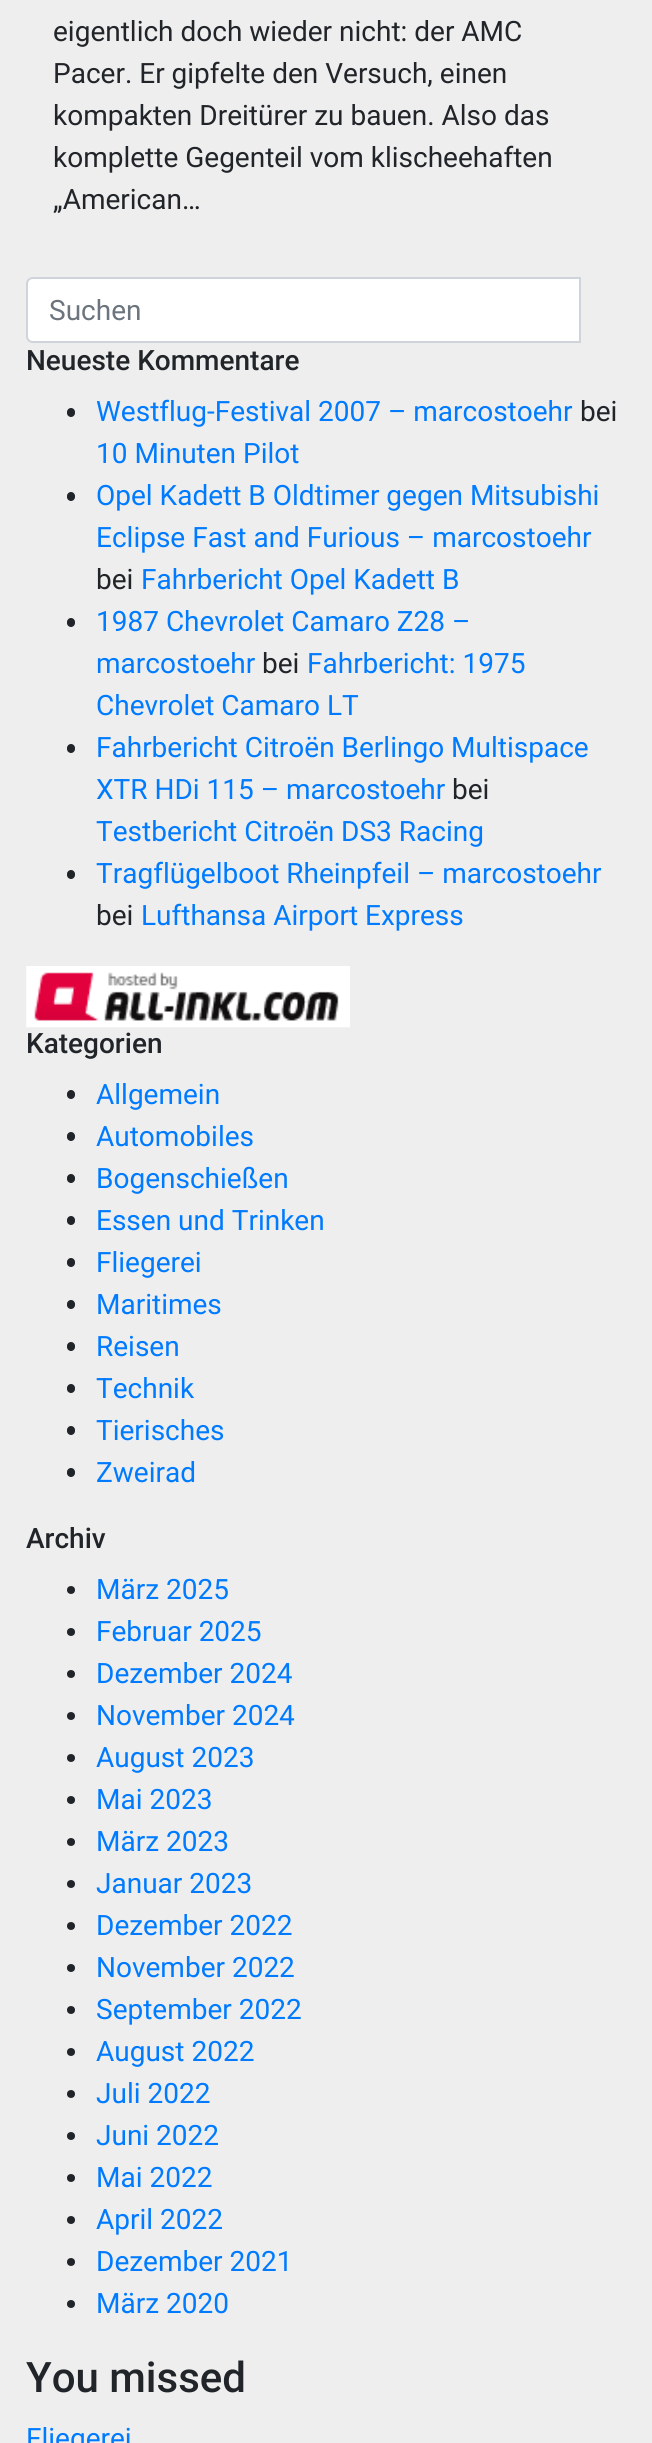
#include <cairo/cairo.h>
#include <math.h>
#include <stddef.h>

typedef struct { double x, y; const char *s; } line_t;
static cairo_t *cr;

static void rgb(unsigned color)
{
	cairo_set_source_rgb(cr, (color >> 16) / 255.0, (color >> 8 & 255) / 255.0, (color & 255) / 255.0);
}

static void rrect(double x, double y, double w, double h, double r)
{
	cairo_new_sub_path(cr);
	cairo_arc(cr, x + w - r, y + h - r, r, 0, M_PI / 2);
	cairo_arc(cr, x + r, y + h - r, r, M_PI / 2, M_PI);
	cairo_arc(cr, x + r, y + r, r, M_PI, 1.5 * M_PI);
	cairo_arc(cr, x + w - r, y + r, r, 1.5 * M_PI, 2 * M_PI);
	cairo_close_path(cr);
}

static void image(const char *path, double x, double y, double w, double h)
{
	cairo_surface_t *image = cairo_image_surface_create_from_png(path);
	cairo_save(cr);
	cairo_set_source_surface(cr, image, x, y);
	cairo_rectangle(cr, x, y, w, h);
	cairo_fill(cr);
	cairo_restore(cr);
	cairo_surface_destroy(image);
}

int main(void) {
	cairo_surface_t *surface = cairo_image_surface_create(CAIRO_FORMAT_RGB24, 652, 2443);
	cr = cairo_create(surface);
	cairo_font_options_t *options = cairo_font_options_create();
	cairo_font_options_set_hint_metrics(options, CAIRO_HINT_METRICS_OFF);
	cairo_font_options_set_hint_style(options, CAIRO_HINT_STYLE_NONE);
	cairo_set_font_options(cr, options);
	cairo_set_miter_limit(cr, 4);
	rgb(0xeeeeee);
	cairo_paint(cr);
	rgb(0xffffff);
	cairo_new_path(cr);
	cairo_move_to(cr, 33, 278);
	cairo_line_to(cr, 580, 278);
	cairo_line_to(cr, 580, 342);
	cairo_line_to(cr, 33, 342);
	cairo_curve_to(cr, 29.5, 342, 27, 339.5, 27, 336);
	cairo_line_to(cr, 27, 284);
	cairo_curve_to(cr, 27, 280.5, 29.5, 278, 33, 278);
	cairo_close_path(cr);
	cairo_fill_preserve(cr);
	rgb(0xced4da);
	cairo_stroke(cr);
	rgb(0x212529);
	rrect(67, 408, 8, 9, 4);
	cairo_fill(cr);
	rrect(67, 492, 8, 9, 4);
	cairo_fill(cr);
	rrect(67, 618, 8, 9, 4);
	cairo_fill(cr);
	rrect(67, 744, 8, 9, 4);
	cairo_fill(cr);
	rrect(67, 870, 8, 9, 4);
	cairo_fill(cr);
	image("img/1.png", 26, 966, 324, 62);
	rrect(67, 1090, 8, 9, 4);
	cairo_fill(cr);
	rrect(67, 1132, 8, 9, 4);
	cairo_fill(cr);
	rrect(67, 1174, 8, 9, 4);
	cairo_fill(cr);
	rrect(67, 1216, 8, 9, 4);
	cairo_fill(cr);
	rrect(67, 1258, 8, 9, 4);
	cairo_fill(cr);
	rrect(67, 1300, 8, 9, 4);
	cairo_fill(cr);
	rrect(67, 1342, 8, 9, 4);
	cairo_fill(cr);
	rrect(67, 1384, 8, 9, 4);
	cairo_fill(cr);
	rrect(67, 1426, 8, 9, 4);
	cairo_fill(cr);
	rrect(67, 1468, 8, 9, 4);
	cairo_fill(cr);
	cairo_arc(cr, 71, 1590, 4, 0, 2 * M_PI);
	cairo_fill(cr);
	cairo_arc(cr, 71, 1632, 4, 0, 2 * M_PI);
	cairo_fill(cr);
	cairo_arc(cr, 71, 1674, 4, 0, 2 * M_PI);
	cairo_fill(cr);
	cairo_arc(cr, 71, 1716, 4, 0, 2 * M_PI);
	cairo_fill(cr);
	cairo_arc(cr, 71, 1758, 4, 0, 2 * M_PI);
	cairo_fill(cr);
	cairo_arc(cr, 71, 1800, 4, 0, 2 * M_PI);
	cairo_fill(cr);
	cairo_arc(cr, 71, 1842, 4, 0, 2 * M_PI);
	cairo_fill(cr);
	cairo_arc(cr, 71, 1884, 4, 0, 2 * M_PI);
	cairo_fill(cr);
	cairo_arc(cr, 71, 1926, 4, 0, 2 * M_PI);
	cairo_fill(cr);
	cairo_arc(cr, 71, 1968, 4, 0, 2 * M_PI);
	cairo_fill(cr);
	cairo_arc(cr, 71, 2010, 4, 0, 2 * M_PI);
	cairo_fill(cr);
	cairo_arc(cr, 71, 2052, 4, 0, 2 * M_PI);
	cairo_fill(cr);
	cairo_arc(cr, 71, 2094, 4, 0, 2 * M_PI);
	cairo_fill(cr);
	cairo_arc(cr, 71, 2136, 4, 0, 2 * M_PI);
	cairo_fill(cr);
	cairo_arc(cr, 71, 2178, 4, 0, 2 * M_PI);
	cairo_fill(cr);
	cairo_arc(cr, 71, 2220, 4, 0, 2 * M_PI);
	cairo_fill(cr);
	cairo_arc(cr, 71, 2262, 4, 0, 2 * M_PI);
	cairo_fill(cr);
	cairo_arc(cr, 71, 2304, 4, 0, 2 * M_PI);
	cairo_fill(cr);
	cairo_select_font_face(cr, "Roboto", CAIRO_FONT_SLANT_NORMAL, CAIRO_FONT_WEIGHT_NORMAL);
	cairo_set_font_size(cr, 28);
	{
		static const line_t items[] = {
			{53, 41, "eigentlich doch wieder nicht: der AMC"},
			{53, 83, "Pacer. Er gipfelte den Versuch, einen"},
			{53, 125, "kompakten Dreitürer zu bauen. Also das"},
			{53, 167, "komplette Gegenteil vom klischeehaften"},
			{53, 209, "„American…"},
		};
		for (size_t i = 0; i < sizeof items / sizeof *items; i++) {
			cairo_move_to(cr, items[i].x, items[i].y);
			cairo_show_text(cr, items[i].s);
		}
	}
	rgb(0x6c757d);
	cairo_move_to(cr, 49, 320);
	cairo_show_text(cr, "Suchen");
	cairo_select_font_face(cr, "Roboto Medium", CAIRO_FONT_SLANT_NORMAL, CAIRO_FONT_WEIGHT_NORMAL);
	rgb(0x212529);
	cairo_move_to(cr, 26, 370);
	cairo_show_text(cr, "Neueste Kommentare");
	cairo_select_font_face(cr, "Roboto", CAIRO_FONT_SLANT_NORMAL, CAIRO_FONT_WEIGHT_NORMAL);
	rgb(0x007bff);
	cairo_move_to(cr, 96, 421);
	cairo_show_text(cr, "Westflug-Festival 2007 – marcostoehr");
	rgb(0x212529);
	cairo_move_to(cr, 580, 421);
	cairo_show_text(cr, "bei");
	rgb(0x007bff);
	{
		static const line_t items[] = {
			{96, 463, "10 Minuten Pilot"},
			{96, 505, "Opel Kadett B Oldtimer gegen Mitsubishi"},
			{96, 547, "Eclipse Fast and Furious – marcostoehr"},
		};
		for (size_t i = 0; i < sizeof items / sizeof *items; i++) {
			cairo_move_to(cr, items[i].x, items[i].y);
			cairo_show_text(cr, items[i].s);
		}
	}
	rgb(0x212529);
	cairo_move_to(cr, 96, 589);
	cairo_show_text(cr, "bei");
	rgb(0x007bff);
	{
		static const line_t items[] = {
			{141, 589, "Fahrbericht Opel Kadett B"},
			{96, 631, "1987 Chevrolet Camaro Z28 –"},
			{96, 673, "marcostoehr"},
		};
		for (size_t i = 0; i < sizeof items / sizeof *items; i++) {
			cairo_move_to(cr, items[i].x, items[i].y);
			cairo_show_text(cr, items[i].s);
		}
	}
	rgb(0x212529);
	cairo_move_to(cr, 262, 673);
	cairo_show_text(cr, "bei");
	rgb(0x007bff);
	{
		static const line_t items[] = {
			{307, 673, "Fahrbericht: 1975"},
			{96, 715, "Chevrolet Camaro LT"},
			{96, 757, "Fahrbericht Citroën Berlingo Multispace"},
			{96, 799, "XTR HDi 115 – marcostoehr"},
		};
		for (size_t i = 0; i < sizeof items / sizeof *items; i++) {
			cairo_move_to(cr, items[i].x, items[i].y);
			cairo_show_text(cr, items[i].s);
		}
	}
	rgb(0x212529);
	cairo_move_to(cr, 452, 799);
	cairo_show_text(cr, "bei");
	rgb(0x007bff);
	cairo_move_to(cr, 96, 841);
	cairo_show_text(cr, "Testbericht Citroën DS3 Racing");
	cairo_move_to(cr, 96, 883);
	cairo_show_text(cr, "Tragflügelboot Rheinpfeil – marcostoehr");
	rgb(0x212529);
	cairo_move_to(cr, 96, 925);
	cairo_show_text(cr, "bei");
	rgb(0x007bff);
	cairo_move_to(cr, 141, 925);
	cairo_show_text(cr, "Lufthansa Airport Express");
	cairo_select_font_face(cr, "Roboto Medium", CAIRO_FONT_SLANT_NORMAL, CAIRO_FONT_WEIGHT_NORMAL);
	rgb(0x212529);
	cairo_move_to(cr, 26, 1053);
	cairo_show_text(cr, "Kategorien");
	cairo_select_font_face(cr, "Roboto", CAIRO_FONT_SLANT_NORMAL, CAIRO_FONT_WEIGHT_NORMAL);
	rgb(0x007bff);
	{
		static const line_t items[] = {
			{96, 1104, "Allgemein"},
			{96, 1146, "Automobiles"},
			{96, 1188, "Bogenschießen"},
			{96, 1230, "Essen und Trinken"},
			{96, 1272, "Fliegerei"},
			{96, 1314, "Maritimes"},
			{96, 1356, "Reisen"},
			{96, 1398, "Technik"},
			{96, 1440, "Tierisches"},
			{96, 1482, "Zweirad"},
		};
		for (size_t i = 0; i < sizeof items / sizeof *items; i++) {
			cairo_move_to(cr, items[i].x, items[i].y);
			cairo_show_text(cr, items[i].s);
		}
	}
	cairo_select_font_face(cr, "Roboto Medium", CAIRO_FONT_SLANT_NORMAL, CAIRO_FONT_WEIGHT_NORMAL);
	rgb(0x212529);
	cairo_move_to(cr, 26, 1548);
	cairo_show_text(cr, "Archiv");
	cairo_select_font_face(cr, "Roboto", CAIRO_FONT_SLANT_NORMAL, CAIRO_FONT_WEIGHT_NORMAL);
	rgb(0x007bff);
	{
		static const line_t items[] = {
			{96, 1599, "März 2025"},
			{96, 1641, "Februar 2025"},
			{96, 1683, "Dezember 2024"},
			{96, 1725, "November 2024"},
			{96, 1767, "August 2023"},
			{96, 1809, "Mai 2023"},
			{96, 1851, "März 2023"},
			{96, 1893, "Januar 2023"},
			{96, 1935, "Dezember 2022"},
			{96, 1977, "November 2022"},
			{96, 2019, "September 2022"},
			{96, 2061, "August 2022"},
			{96, 2103, "Juli 2022"},
			{96, 2145, "Juni 2022"},
			{96, 2187, "Mai 2022"},
			{96, 2229, "April 2022"},
			{96, 2271, "Dezember 2021"},
			{96, 2313, "März 2020"},
		};
		for (size_t i = 0; i < sizeof items / sizeof *items; i++) {
			cairo_move_to(cr, items[i].x, items[i].y);
			cairo_show_text(cr, items[i].s);
		}
	}
	cairo_select_font_face(cr, "Roboto Medium", CAIRO_FONT_SLANT_NORMAL, CAIRO_FONT_WEIGHT_NORMAL);
	cairo_set_font_size(cr, 42);
	rgb(0x212529);
	cairo_move_to(cr, 26, 2392);
	cairo_show_text(cr, "You missed");
	cairo_select_font_face(cr, "Roboto", CAIRO_FONT_SLANT_NORMAL, CAIRO_FONT_WEIGHT_NORMAL);
	cairo_set_font_size(cr, 28);
	rgb(0x007bff);
	cairo_move_to(cr, 26, 2448);
	cairo_show_text(cr, "Fliegerei");
	cairo_surface_write_to_png(surface, "page.png");
	cairo_font_options_destroy(options);
	cairo_destroy(cr);
	cairo_surface_destroy(surface);
	return 0;
}
